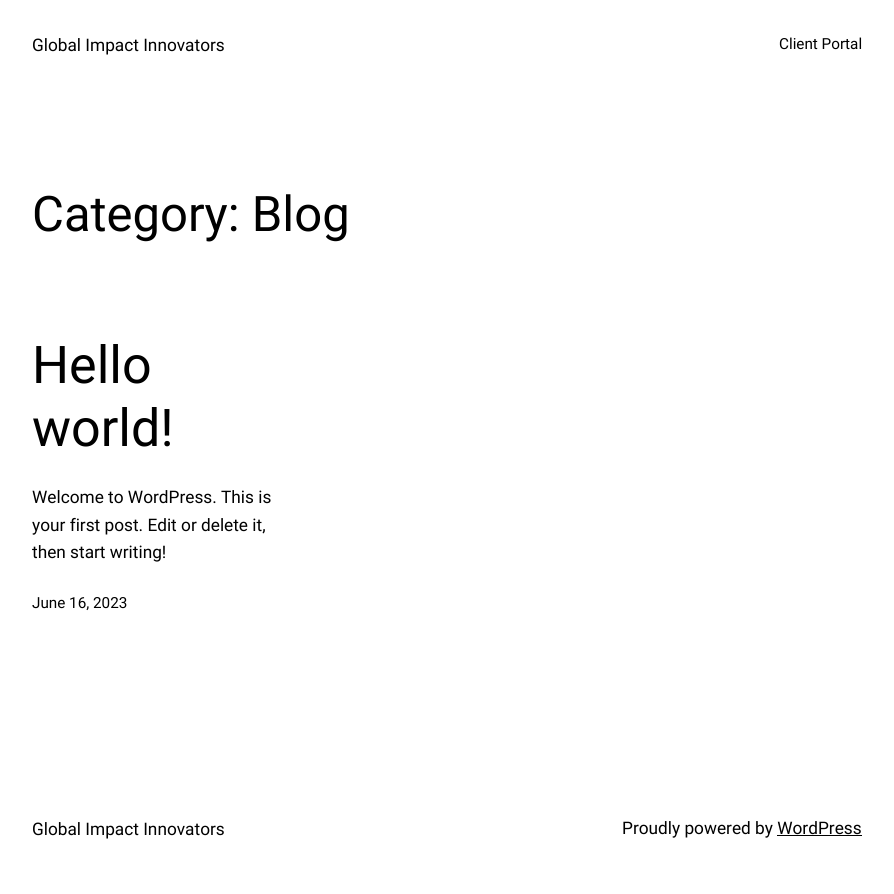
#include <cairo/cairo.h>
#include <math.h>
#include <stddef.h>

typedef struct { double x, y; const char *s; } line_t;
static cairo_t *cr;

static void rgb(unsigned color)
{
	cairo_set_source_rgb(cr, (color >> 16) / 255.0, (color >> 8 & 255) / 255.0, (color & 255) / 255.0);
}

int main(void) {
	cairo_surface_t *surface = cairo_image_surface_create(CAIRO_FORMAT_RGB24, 894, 894);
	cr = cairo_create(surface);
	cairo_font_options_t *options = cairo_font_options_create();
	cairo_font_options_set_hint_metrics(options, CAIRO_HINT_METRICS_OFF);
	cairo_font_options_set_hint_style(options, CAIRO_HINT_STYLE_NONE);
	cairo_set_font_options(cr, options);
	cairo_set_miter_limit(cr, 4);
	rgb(0xffffff);
	cairo_paint(cr);
	rgb(0x000000);
	cairo_rectangle(cr, 777, 835, 85, 1);
	cairo_fill(cr);
	cairo_select_font_face(cr, "Roboto", CAIRO_FONT_SLANT_NORMAL, CAIRO_FONT_WEIGHT_NORMAL);
	cairo_set_font_size(cr, 17.25);
	cairo_move_to(cr, 32, 51);
	cairo_show_text(cr, "Global Impact Innovators");
	cairo_set_font_size(cr, 15.25);
	cairo_move_to(cr, 779, 49);
	cairo_show_text(cr, "Client Portal");
	cairo_set_font_size(cr, 49);
	cairo_move_to(cr, 32, 231);
	cairo_show_text(cr, "Category: Blog");
	cairo_set_font_size(cr, 52);
	cairo_move_to(cr, 32, 383);
	cairo_show_text(cr, "Hello");
	cairo_move_to(cr, 32, 446);
	cairo_show_text(cr, "world!");
	cairo_set_font_size(cr, 17.25);
	{
		static const line_t items[] = {
			{32, 503, "Welcome to WordPress. This is"},
			{32, 531, "your first post. Edit or delete it,"},
			{32, 558, "then start writing!"},
		};
		for (size_t i = 0; i < sizeof items / sizeof *items; i++) {
			cairo_move_to(cr, items[i].x, items[i].y);
			cairo_show_text(cr, items[i].s);
		}
	}
	cairo_set_font_size(cr, 15.25);
	cairo_move_to(cr, 32, 608);
	cairo_show_text(cr, "June 16, 2023");
	cairo_set_font_size(cr, 17.25);
	cairo_move_to(cr, 32, 835);
	cairo_show_text(cr, "Global Impact Innovators");
	cairo_move_to(cr, 622, 834);
	cairo_show_text(cr, "Proudly powered by WordPress");
	cairo_surface_write_to_png(surface, "page.png");
	cairo_font_options_destroy(options);
	cairo_destroy(cr);
	cairo_surface_destroy(surface);
	return 0;
}
